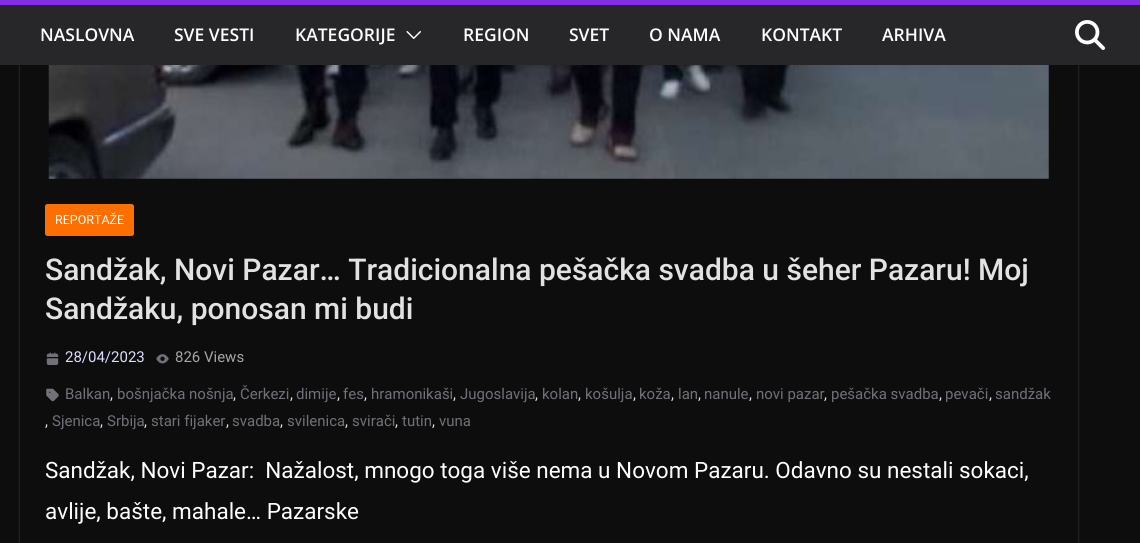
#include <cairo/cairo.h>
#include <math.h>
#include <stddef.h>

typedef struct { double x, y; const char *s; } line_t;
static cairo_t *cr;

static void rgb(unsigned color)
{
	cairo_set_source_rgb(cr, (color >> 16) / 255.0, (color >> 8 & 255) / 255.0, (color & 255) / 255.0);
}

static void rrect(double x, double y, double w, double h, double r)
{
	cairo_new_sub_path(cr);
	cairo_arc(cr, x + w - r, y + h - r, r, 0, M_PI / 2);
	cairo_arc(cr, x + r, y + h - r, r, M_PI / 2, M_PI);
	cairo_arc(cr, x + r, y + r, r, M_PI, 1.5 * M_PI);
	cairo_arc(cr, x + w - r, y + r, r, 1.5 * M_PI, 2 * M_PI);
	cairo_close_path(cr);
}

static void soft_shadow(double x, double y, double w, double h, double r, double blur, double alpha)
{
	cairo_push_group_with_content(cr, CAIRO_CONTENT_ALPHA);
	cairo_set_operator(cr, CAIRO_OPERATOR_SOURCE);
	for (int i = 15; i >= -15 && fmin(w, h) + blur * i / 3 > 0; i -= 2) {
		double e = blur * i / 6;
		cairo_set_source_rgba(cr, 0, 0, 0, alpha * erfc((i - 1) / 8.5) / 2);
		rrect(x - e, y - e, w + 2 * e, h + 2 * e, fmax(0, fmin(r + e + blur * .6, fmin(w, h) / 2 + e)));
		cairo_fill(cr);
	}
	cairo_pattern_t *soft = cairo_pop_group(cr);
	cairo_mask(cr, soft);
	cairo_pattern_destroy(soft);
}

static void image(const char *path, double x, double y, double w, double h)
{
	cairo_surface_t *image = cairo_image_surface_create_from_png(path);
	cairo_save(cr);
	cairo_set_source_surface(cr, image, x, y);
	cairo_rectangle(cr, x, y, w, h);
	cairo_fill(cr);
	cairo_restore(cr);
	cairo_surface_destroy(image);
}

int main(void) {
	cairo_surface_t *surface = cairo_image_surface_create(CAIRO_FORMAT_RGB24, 1140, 543);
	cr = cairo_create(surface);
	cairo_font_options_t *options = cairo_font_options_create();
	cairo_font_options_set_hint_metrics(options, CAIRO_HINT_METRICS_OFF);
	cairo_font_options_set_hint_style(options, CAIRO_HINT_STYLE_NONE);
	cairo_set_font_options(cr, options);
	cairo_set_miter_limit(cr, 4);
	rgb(0x0d0d0d);
	cairo_paint(cr);
	cairo_save(cr);
	cairo_set_fill_rule(cr, CAIRO_FILL_RULE_EVEN_ODD);
	cairo_new_path(cr);
	cairo_move_to(cr, 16, 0);
	cairo_line_to(cr, 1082, 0);
	cairo_line_to(cr, 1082, 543);
	cairo_line_to(cr, 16, 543);
	cairo_close_path(cr);
	cairo_move_to(cr, 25, -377);
	cairo_line_to(cr, 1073, -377);
	cairo_curve_to(cr, 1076, -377, 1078, -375, 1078, -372);
	cairo_line_to(cr, 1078, 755);
	cairo_curve_to(cr, 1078, 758, 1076, 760, 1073, 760);
	cairo_line_to(cr, 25, 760);
	cairo_curve_to(cr, 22, 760, 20, 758, 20, 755);
	cairo_line_to(cr, 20, -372);
	cairo_curve_to(cr, 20, -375, 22, -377, 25, -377);
	cairo_close_path(cr);
	cairo_clip(cr);
	rgb(0xffffff);
	soft_shadow(20, -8, 1058, 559, 5, 1, 0.24);
	cairo_restore(cr);
	rgb(0x27272a);
	cairo_rectangle(cr, 0, 5, 1140, 60);
	cairo_fill(cr);
	rgb(0x812ee8);
	cairo_rectangle(cr, 0, 0, 1140, 5);
	cairo_fill(cr);
	image("img/1.png", 406, 31, 15, 8);
	image("img/2.png", 1075, 20, 30, 30);
	image("img/3.png", 48, 65, 1001, 114);
	rgb(0xff6f00);
	rrect(45, 204, 89, 32, 2.5);
	cairo_fill(cr);
	image("img/4.png", 46, 352, 13, 13);
	image("img/5.png", 156, 354, 13, 10);
	image("img/6.png", 46, 388, 13, 14);
	cairo_select_font_face(cr, "Open Sans SemiBold", CAIRO_FONT_SLANT_NORMAL, CAIRO_FONT_WEIGHT_NORMAL);
	cairo_set_font_size(cr, 17.5);
	rgb(0xffffff);
	{
		static const line_t items[] = {
			{40, 41, "NASLOVNA"},
			{174, 41, "SVE VESTI"},
			{295, 41, "KATEGORIJE"},
			{463, 41, "REGION"},
			{569, 41, "SVET"},
			{649, 41, "O NAMA"},
			{761, 41, "KONTAKT"},
			{882, 41, "ARHIVA"},
		};
		for (size_t i = 0; i < sizeof items / sizeof *items; i++) {
			cairo_move_to(cr, items[i].x, items[i].y);
			cairo_show_text(cr, items[i].s);
		}
	}
	cairo_select_font_face(cr, "Roboto", CAIRO_FONT_SLANT_NORMAL, CAIRO_FONT_WEIGHT_NORMAL);
	cairo_set_font_size(cr, 12.5);
	cairo_move_to(cr, 55, 224);
	cairo_show_text(cr, "REPORTAŽE");
	cairo_select_font_face(cr, "Roboto Medium", CAIRO_FONT_SLANT_NORMAL, CAIRO_FONT_WEIGHT_NORMAL);
	cairo_set_font_size(cr, 30);
	rgb(0xe3e2e2);
	cairo_move_to(cr, 45, 280);
	cairo_show_text(cr, "Sandžak, Novi Pazar… Tradicionalna pešačka svadba u šeher Pazaru! Moj");
	cairo_move_to(cr, 45, 319);
	cairo_show_text(cr, "Sandžaku, ponosan mi budi");
	cairo_select_font_face(cr, "Roboto", CAIRO_FONT_SLANT_NORMAL, CAIRO_FONT_WEIGHT_NORMAL);
	cairo_set_font_size(cr, 15);
	rgb(0xddddff);
	cairo_move_to(cr, 65, 362);
	cairo_show_text(cr, "28/04/2023");
	rgb(0xa6a6a6);
	cairo_move_to(cr, 175, 362);
	cairo_show_text(cr, "826 Views");
	rgb(0x71717a);
	cairo_move_to(cr, 65, 399);
	cairo_show_text(cr, "Balkan");
	rgb(0xe3e2e2);
	cairo_move_to(cr, 110, 399);
	cairo_show_text(cr, ",");
	rgb(0x71717a);
	cairo_move_to(cr, 117, 399);
	cairo_show_text(cr, "bošnjačka nošnja");
	rgb(0xe3e2e2);
	cairo_move_to(cr, 233, 399);
	cairo_show_text(cr, ",");
	rgb(0x71717a);
	cairo_move_to(cr, 240, 399);
	cairo_show_text(cr, "Čerkezi");
	rgb(0xe3e2e2);
	cairo_move_to(cr, 290, 399);
	cairo_show_text(cr, ",");
	rgb(0x71717a);
	cairo_move_to(cr, 296, 399);
	cairo_show_text(cr, "dimije");
	rgb(0xe3e2e2);
	cairo_move_to(cr, 337, 399);
	cairo_show_text(cr, ",");
	rgb(0x71717a);
	cairo_move_to(cr, 343, 399);
	cairo_show_text(cr, "fes");
	rgb(0xe3e2e2);
	cairo_move_to(cr, 364, 399);
	cairo_show_text(cr, ",");
	rgb(0x71717a);
	cairo_move_to(cr, 371, 399);
	cairo_show_text(cr, "hramonikaši");
	rgb(0xe3e2e2);
	cairo_move_to(cr, 453, 399);
	cairo_show_text(cr, ",");
	rgb(0x71717a);
	cairo_move_to(cr, 460, 399);
	cairo_show_text(cr, "Jugoslavija");
	rgb(0xe3e2e2);
	cairo_move_to(cr, 535, 399);
	cairo_show_text(cr, ",");
	rgb(0x71717a);
	cairo_move_to(cr, 542, 399);
	cairo_show_text(cr, "kolan");
	rgb(0xe3e2e2);
	cairo_move_to(cr, 578, 399);
	cairo_show_text(cr, ",");
	rgb(0x71717a);
	cairo_move_to(cr, 585, 399);
	cairo_show_text(cr, "košulja");
	rgb(0xe3e2e2);
	cairo_move_to(cr, 633, 399);
	cairo_show_text(cr, ",");
	rgb(0x71717a);
	cairo_move_to(cr, 639, 399);
	cairo_show_text(cr, "koža");
	rgb(0xe3e2e2);
	cairo_move_to(cr, 671, 399);
	cairo_show_text(cr, ",");
	rgb(0x71717a);
	cairo_move_to(cr, 678, 399);
	cairo_show_text(cr, "lan");
	rgb(0xe3e2e2);
	cairo_move_to(cr, 698, 399);
	cairo_show_text(cr, ",");
	rgb(0x71717a);
	cairo_move_to(cr, 704, 399);
	cairo_show_text(cr, "nanule");
	rgb(0xe3e2e2);
	cairo_move_to(cr, 749, 399);
	cairo_show_text(cr, ",");
	rgb(0x71717a);
	cairo_move_to(cr, 756, 399);
	cairo_show_text(cr, "novi pazar");
	rgb(0xe3e2e2);
	cairo_move_to(cr, 824, 399);
	cairo_show_text(cr, ",");
	rgb(0x71717a);
	cairo_move_to(cr, 831, 399);
	cairo_show_text(cr, "pešačka svadba");
	rgb(0xe3e2e2);
	cairo_move_to(cr, 939, 399);
	cairo_show_text(cr, ",");
	rgb(0x71717a);
	cairo_move_to(cr, 945, 399);
	cairo_show_text(cr, "pevači");
	rgb(0xe3e2e2);
	cairo_move_to(cr, 989, 399);
	cairo_show_text(cr, ",");
	rgb(0x71717a);
	cairo_move_to(cr, 995, 399);
	cairo_show_text(cr, "sandžak");
	rgb(0xe3e2e2);
	cairo_move_to(cr, 45, 426);
	cairo_show_text(cr, ",");
	rgb(0x71717a);
	cairo_move_to(cr, 52, 426);
	cairo_show_text(cr, "Sjenica");
	rgb(0xe3e2e2);
	cairo_move_to(cr, 100, 426);
	cairo_show_text(cr, ",");
	rgb(0x71717a);
	cairo_move_to(cr, 107, 426);
	cairo_show_text(cr, "Srbija");
	rgb(0xe3e2e2);
	cairo_move_to(cr, 144, 426);
	cairo_show_text(cr, ",");
	rgb(0x71717a);
	cairo_move_to(cr, 151, 426);
	cairo_show_text(cr, "stari fijaker");
	rgb(0xe3e2e2);
	cairo_move_to(cr, 226, 426);
	cairo_show_text(cr, ",");
	rgb(0x71717a);
	cairo_move_to(cr, 232, 426);
	cairo_show_text(cr, "svadba");
	rgb(0xe3e2e2);
	cairo_move_to(cr, 280, 426);
	cairo_show_text(cr, ",");
	rgb(0x71717a);
	cairo_move_to(cr, 287, 426);
	cairo_show_text(cr, "svilenica");
	rgb(0xe3e2e2);
	cairo_move_to(cr, 345, 426);
	cairo_show_text(cr, ",");
	rgb(0x71717a);
	cairo_move_to(cr, 352, 426);
	cairo_show_text(cr, "svirači");
	rgb(0xe3e2e2);
	cairo_move_to(cr, 395, 426);
	cairo_show_text(cr, ",");
	rgb(0x71717a);
	cairo_move_to(cr, 402, 426);
	cairo_show_text(cr, "tutin");
	rgb(0xe3e2e2);
	cairo_move_to(cr, 432, 426);
	cairo_show_text(cr, ",");
	rgb(0x71717a);
	cairo_move_to(cr, 439, 426);
	cairo_show_text(cr, "vuna");
	cairo_set_font_size(cr, 22.5);
	rgb(0xffffff);
	cairo_move_to(cr, 45, 478);
	cairo_show_text(cr, "Sandžak, Novi Pazar:  Nažalost, mnogo toga više nema u Novom Pazaru. Odavno su nestali sokaci,");
	cairo_move_to(cr, 45, 519);
	cairo_show_text(cr, "avlije, bašte, mahale… Pazarske");
	cairo_surface_write_to_png(surface, "page.png");
	cairo_font_options_destroy(options);
	cairo_destroy(cr);
	cairo_surface_destroy(surface);
	return 0;
}
